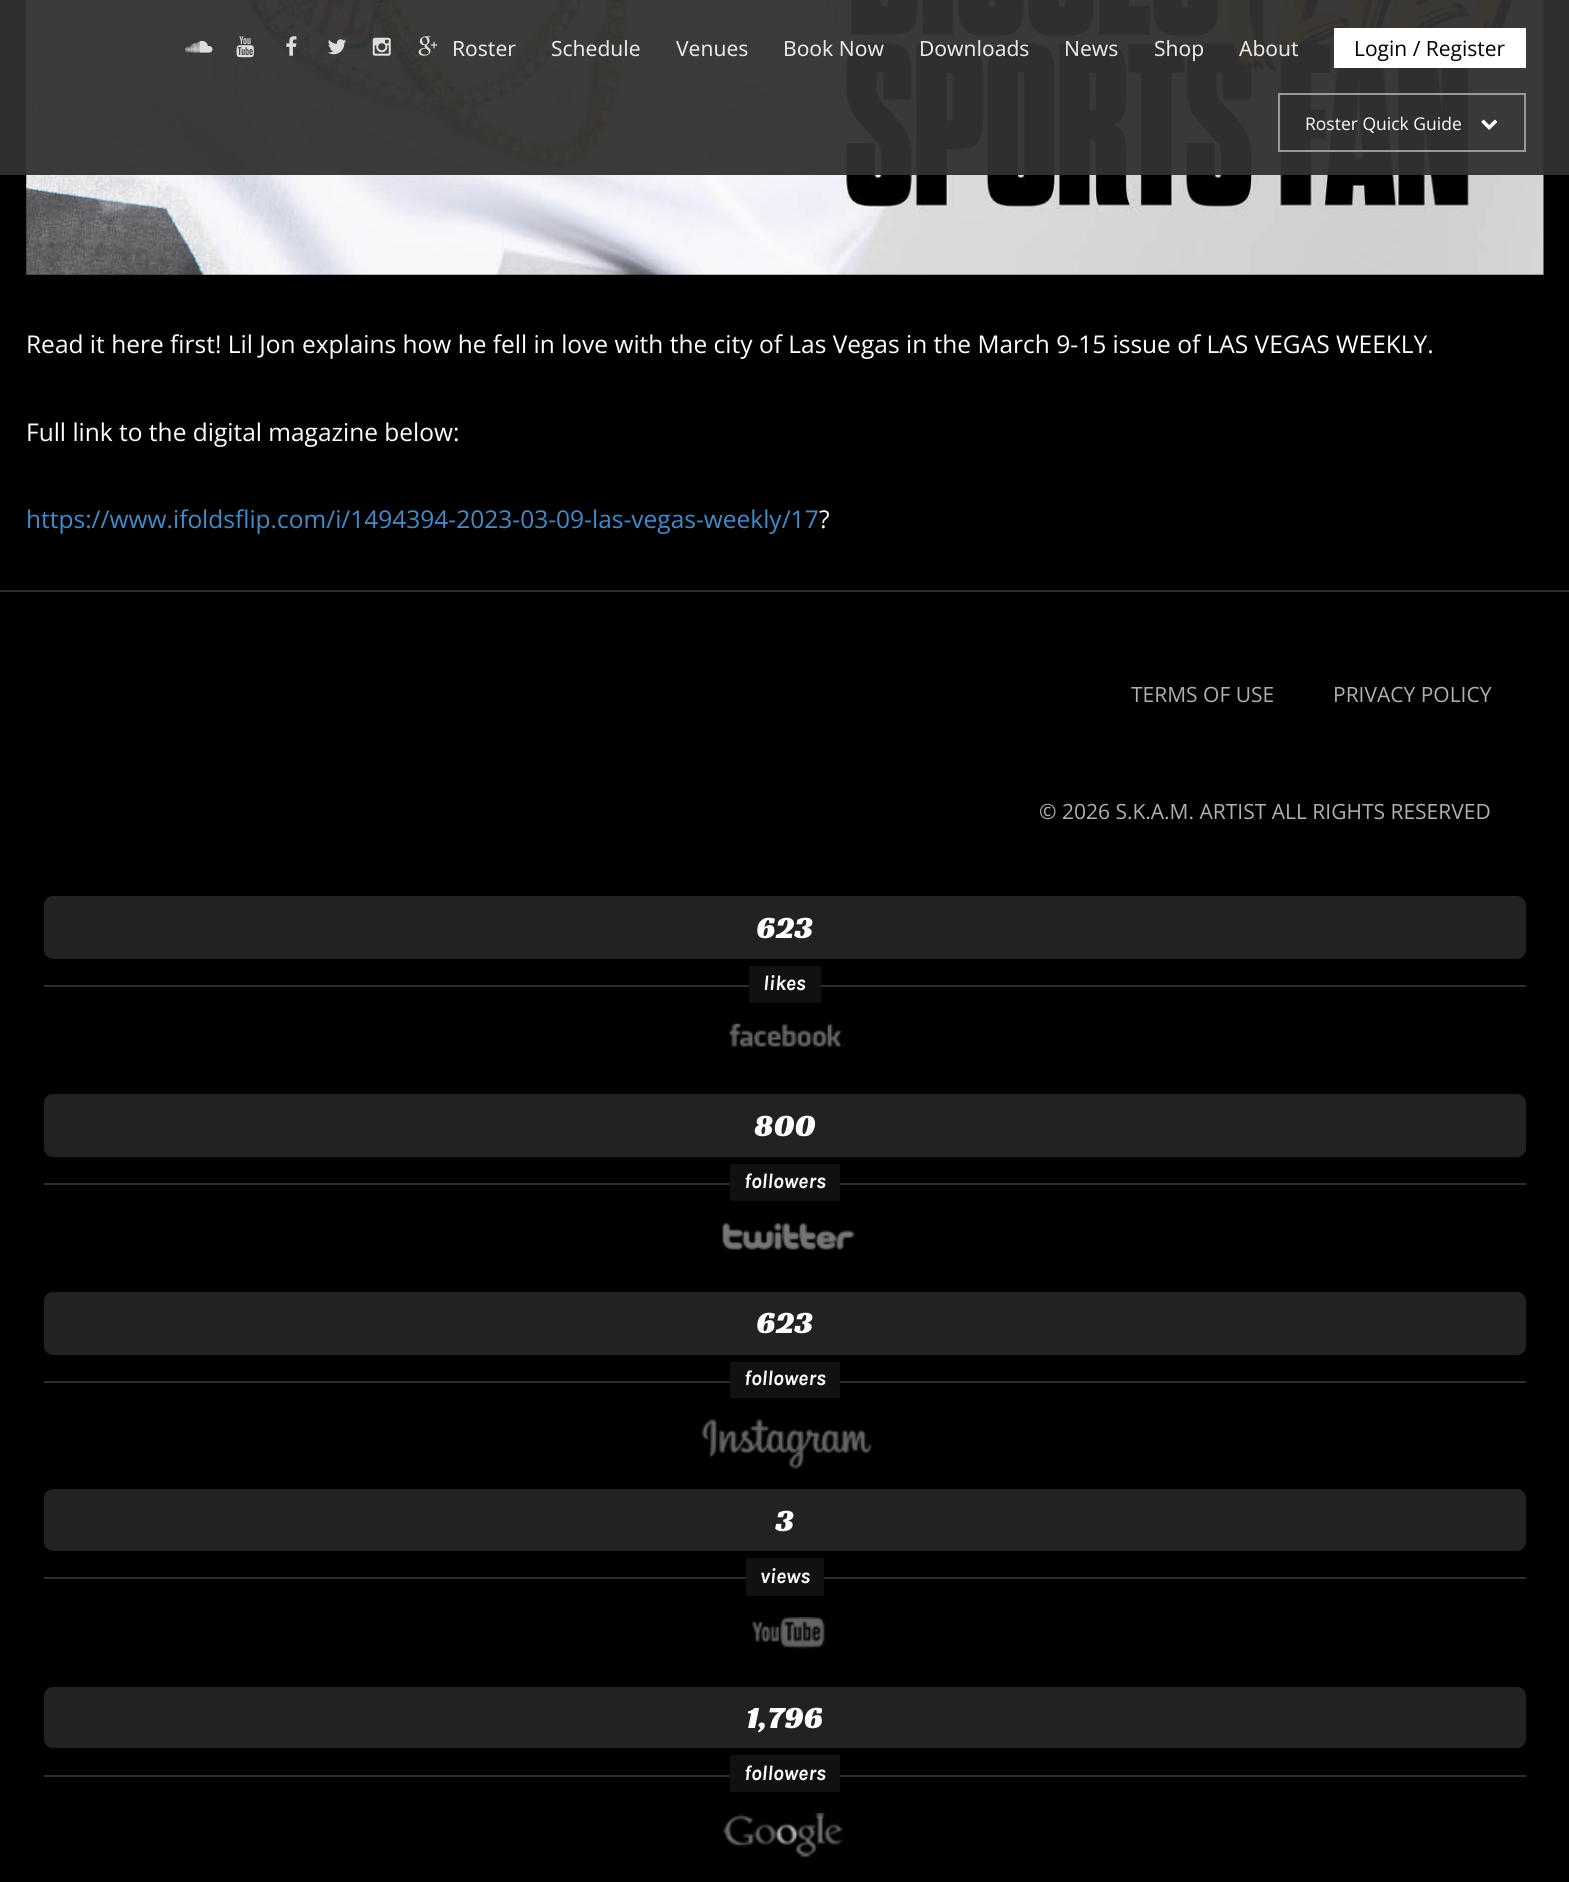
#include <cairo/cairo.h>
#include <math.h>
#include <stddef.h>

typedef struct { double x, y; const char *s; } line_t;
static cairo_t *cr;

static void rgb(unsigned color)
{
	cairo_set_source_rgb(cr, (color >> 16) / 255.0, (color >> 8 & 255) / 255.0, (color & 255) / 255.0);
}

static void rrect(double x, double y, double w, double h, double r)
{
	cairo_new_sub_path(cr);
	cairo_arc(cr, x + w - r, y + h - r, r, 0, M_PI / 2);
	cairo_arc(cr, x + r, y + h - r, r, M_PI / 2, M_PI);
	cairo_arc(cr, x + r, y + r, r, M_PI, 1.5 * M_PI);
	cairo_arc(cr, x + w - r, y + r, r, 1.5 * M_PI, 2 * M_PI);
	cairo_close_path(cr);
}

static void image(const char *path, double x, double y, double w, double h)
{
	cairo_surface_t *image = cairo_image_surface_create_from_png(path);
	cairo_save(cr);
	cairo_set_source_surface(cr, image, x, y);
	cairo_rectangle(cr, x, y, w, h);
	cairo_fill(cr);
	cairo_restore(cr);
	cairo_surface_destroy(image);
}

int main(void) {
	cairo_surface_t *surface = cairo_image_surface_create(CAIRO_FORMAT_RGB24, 1569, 1882);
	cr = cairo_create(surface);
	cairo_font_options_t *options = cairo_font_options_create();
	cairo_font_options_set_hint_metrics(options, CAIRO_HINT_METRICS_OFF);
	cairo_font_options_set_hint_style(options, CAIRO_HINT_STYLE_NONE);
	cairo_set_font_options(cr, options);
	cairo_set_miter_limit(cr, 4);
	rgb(0xffffff);
	cairo_paint(cr);
	image("img/1.png", 0, 0, 1569, 590);
	image("img/9.png", 26, 0, 1518, 275);
	cairo_set_source_rgba(cr, 0.196, 0.196, 0.196, 0.95);
	cairo_rectangle(cr, 0, 0, 1569, 175);
	cairo_fill(cr);
	image("img/2.png", 185, 40, 28, 13);
	image("img/3.png", 236, 36, 18, 22);
	image("img/4.png", 286, 36, 11, 20);
	image("img/5.png", 328, 39, 18, 16);
	image("img/6.png", 372, 37, 19, 19);
	image("img/7.png", 418, 36, 20, 20);
	rgb(0xffffff);
	cairo_rectangle(cr, 1334, 28, 192, 40);
	cairo_fill(cr);
	cairo_rectangle(cr, 1279, 94, 246, 57);
	rgb(0x999999);
	cairo_stroke(cr);
	image("img/8.png", 1481, 119, 17, 11);
	rgb(0x000000);
	cairo_rectangle(cr, 0, 592, 1569, 1290);
	cairo_fill(cr);
	rgb(0x2d2d2d);
	cairo_rectangle(cr, 0, 590, 1569, 2);
	cairo_fill(cr);
	rgb(0x222222);
	rrect(44, 896, 1482, 63, 9);
	cairo_fill(cr);
	rgb(0x2d2d2d);
	cairo_rectangle(cr, 44, 985, 1482, 2);
	cairo_fill(cr);
	rgb(0x111111);
	cairo_rectangle(cr, 749, 966, 72, 37);
	cairo_fill(cr);
	image("img/10.png", 729, 1023, 117, 24);
	rgb(0x222222);
	rrect(44, 1094, 1482, 63, 9);
	cairo_fill(cr);
	rgb(0x2d2d2d);
	cairo_rectangle(cr, 44, 1183, 1482, 2);
	cairo_fill(cr);
	rgb(0x111111);
	cairo_rectangle(cr, 730, 1164, 110, 37);
	cairo_fill(cr);
	image("img/11.png", 722, 1222, 133, 28);
	rgb(0x222222);
	rrect(44, 1292, 1482, 63, 9);
	cairo_fill(cr);
	rgb(0x2d2d2d);
	cairo_rectangle(cr, 44, 1381, 1482, 2);
	cairo_fill(cr);
	rgb(0x111111);
	cairo_rectangle(cr, 730, 1362, 110, 36);
	cairo_fill(cr);
	image("img/12.png", 701, 1419, 171, 50);
	rgb(0x222222);
	rrect(44, 1489, 1482, 62, 9);
	cairo_fill(cr);
	rgb(0x2d2d2d);
	cairo_rectangle(cr, 44, 1577, 1482, 2);
	cairo_fill(cr);
	rgb(0x111111);
	cairo_rectangle(cr, 746, 1558, 78, 38);
	cairo_fill(cr);
	image("img/13.png", 752, 1617, 73, 32);
	rgb(0x222222);
	rrect(44, 1687, 1482, 61, 9);
	cairo_fill(cr);
	rgb(0x2d2d2d);
	cairo_rectangle(cr, 44, 1775, 1482, 2);
	cairo_fill(cr);
	rgb(0x111111);
	cairo_rectangle(cr, 730, 1755, 110, 37);
	cairo_fill(cr);
	image("img/14.png", 722, 1813, 123, 45);
	cairo_select_font_face(cr, "Noto Sans", CAIRO_FONT_SLANT_NORMAL, CAIRO_FONT_WEIGHT_NORMAL);
	cairo_set_font_size(cr, 21);
	rgb(0xe7e7e7);
	{
		static const line_t items[] = {
			{452, 56, "Roster"},
			{551, 56, "Schedule"},
			{676, 56, "Venues"},
			{783, 56, "Book Now"},
			{919, 56, "Downloads"},
			{1064, 56, "News"},
			{1154, 56, "Shop"},
			{1239, 56, "About"},
		};
		for (size_t i = 0; i < sizeof items / sizeof *items; i++) {
			cairo_move_to(cr, items[i].x, items[i].y);
			cairo_show_text(cr, items[i].s);
		}
	}
	cairo_select_font_face(cr, "Open Sans", CAIRO_FONT_SLANT_NORMAL, CAIRO_FONT_WEIGHT_NORMAL);
	rgb(0x000000);
	cairo_move_to(cr, 1354, 56);
	cairo_show_text(cr, "Login / Register");
	cairo_set_font_size(cr, 17.5);
	rgb(0xffffff);
	cairo_move_to(cr, 1305, 130);
	cairo_show_text(cr, "Roster Quick Guide");
	cairo_set_font_size(cr, 24.5);
	cairo_move_to(cr, 26, 353);
	cairo_show_text(cr, "Read it here first! Lil Jon explains how he fell in love with the city of Las Vegas in the March 9-15 issue of LAS VEGAS WEEKLY.");
	cairo_move_to(cr, 26, 441);
	cairo_show_text(cr, "Full link to the digital magazine below:");
	rgb(0x428bca);
	cairo_move_to(cr, 26, 528);
	cairo_show_text(cr, "https://www.ifoldsflip.com/i/1494394-2023-03-09-las-vegas-weekly/17");
	rgb(0xffffff);
	cairo_move_to(cr, 819, 528);
	cairo_show_text(cr, "?");
	cairo_set_font_size(cr, 21);
	rgb(0xb0b0b0);
	{
		static const line_t items[] = {
			{1131, 702, "TERMS OF USE"},
			{1333, 702, "PRIVACY POLICY"},
			{1039, 819, "© 2026 S.K.A.M. ARTIST ALL RIGHTS RESERVED"},
		};
		for (size_t i = 0; i < sizeof items / sizeof *items; i++) {
			cairo_move_to(cr, items[i].x, items[i].y);
			cairo_show_text(cr, items[i].s);
		}
	}
	cairo_select_font_face(cr, "Racing Sans One", CAIRO_FONT_SLANT_NORMAL, CAIRO_FONT_WEIGHT_NORMAL);
	cairo_set_font_size(cr, 31.5);
	rgb(0xffffff);
	cairo_move_to(cr, 756, 938);
	cairo_show_text(cr, "623");
	cairo_select_font_face(cr, "Karla", CAIRO_FONT_SLANT_ITALIC, CAIRO_FONT_WEIGHT_BOLD);
	cairo_set_font_size(cr, 21);
	cairo_move_to(cr, 763, 990);
	cairo_show_text(cr, "likes");
	cairo_select_font_face(cr, "Racing Sans One", CAIRO_FONT_SLANT_NORMAL, CAIRO_FONT_WEIGHT_NORMAL);
	cairo_set_font_size(cr, 31.5);
	cairo_move_to(cr, 754, 1136);
	cairo_show_text(cr, "800");
	cairo_select_font_face(cr, "Karla", CAIRO_FONT_SLANT_ITALIC, CAIRO_FONT_WEIGHT_BOLD);
	cairo_set_font_size(cr, 21);
	cairo_move_to(cr, 744, 1188);
	cairo_show_text(cr, "followers");
	cairo_select_font_face(cr, "Racing Sans One", CAIRO_FONT_SLANT_NORMAL, CAIRO_FONT_WEIGHT_NORMAL);
	cairo_set_font_size(cr, 31.5);
	cairo_move_to(cr, 756, 1333);
	cairo_show_text(cr, "623");
	cairo_select_font_face(cr, "Karla", CAIRO_FONT_SLANT_ITALIC, CAIRO_FONT_WEIGHT_BOLD);
	cairo_set_font_size(cr, 21);
	cairo_move_to(cr, 744, 1385);
	cairo_show_text(cr, "followers");
	cairo_select_font_face(cr, "Racing Sans One", CAIRO_FONT_SLANT_NORMAL, CAIRO_FONT_WEIGHT_NORMAL);
	cairo_set_font_size(cr, 31.5);
	cairo_move_to(cr, 775, 1531);
	cairo_show_text(cr, "3");
	cairo_select_font_face(cr, "Karla", CAIRO_FONT_SLANT_ITALIC, CAIRO_FONT_WEIGHT_BOLD);
	cairo_set_font_size(cr, 21);
	cairo_move_to(cr, 760, 1583);
	cairo_show_text(cr, "views");
	cairo_select_font_face(cr, "Racing Sans One", CAIRO_FONT_SLANT_NORMAL, CAIRO_FONT_WEIGHT_NORMAL);
	cairo_set_font_size(cr, 31.5);
	cairo_move_to(cr, 746, 1728);
	cairo_show_text(cr, "1,796");
	cairo_select_font_face(cr, "Karla", CAIRO_FONT_SLANT_ITALIC, CAIRO_FONT_WEIGHT_BOLD);
	cairo_set_font_size(cr, 21);
	cairo_move_to(cr, 744, 1780);
	cairo_show_text(cr, "followers");
	cairo_surface_write_to_png(surface, "page.png");
	cairo_font_options_destroy(options);
	cairo_destroy(cr);
	cairo_surface_destroy(surface);
	return 0;
}
